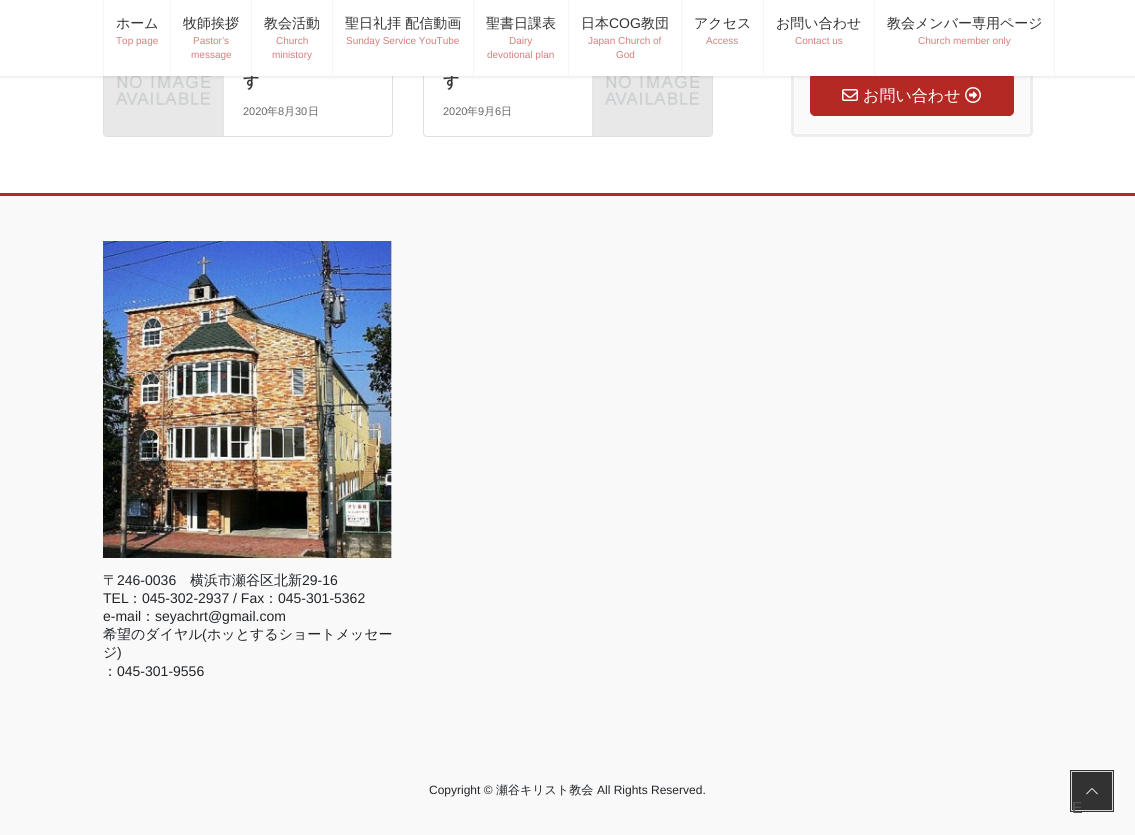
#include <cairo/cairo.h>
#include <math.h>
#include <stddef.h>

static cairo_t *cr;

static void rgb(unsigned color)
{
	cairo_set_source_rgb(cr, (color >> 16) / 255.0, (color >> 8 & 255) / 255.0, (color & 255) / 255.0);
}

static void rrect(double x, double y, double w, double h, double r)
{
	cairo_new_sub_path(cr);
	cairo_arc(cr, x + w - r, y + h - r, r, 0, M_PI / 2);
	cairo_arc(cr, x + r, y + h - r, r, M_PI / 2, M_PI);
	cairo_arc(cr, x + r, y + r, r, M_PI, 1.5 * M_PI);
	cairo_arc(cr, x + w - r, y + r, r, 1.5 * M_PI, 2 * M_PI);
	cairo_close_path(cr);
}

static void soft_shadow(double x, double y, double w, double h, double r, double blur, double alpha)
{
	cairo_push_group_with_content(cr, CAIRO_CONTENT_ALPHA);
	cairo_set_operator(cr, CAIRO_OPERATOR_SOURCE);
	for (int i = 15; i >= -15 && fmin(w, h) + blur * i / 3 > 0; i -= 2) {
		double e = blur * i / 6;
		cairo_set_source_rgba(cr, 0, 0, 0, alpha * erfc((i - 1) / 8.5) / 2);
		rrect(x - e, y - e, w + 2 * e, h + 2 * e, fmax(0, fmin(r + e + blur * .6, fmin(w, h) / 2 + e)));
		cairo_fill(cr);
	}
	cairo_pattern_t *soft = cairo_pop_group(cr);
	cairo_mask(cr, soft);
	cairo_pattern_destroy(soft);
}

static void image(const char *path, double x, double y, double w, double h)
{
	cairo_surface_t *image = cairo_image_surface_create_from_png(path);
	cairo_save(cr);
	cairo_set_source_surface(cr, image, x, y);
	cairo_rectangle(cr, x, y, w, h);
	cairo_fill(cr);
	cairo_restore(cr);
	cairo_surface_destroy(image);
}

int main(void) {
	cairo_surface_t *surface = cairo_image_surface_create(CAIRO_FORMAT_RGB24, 1135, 835);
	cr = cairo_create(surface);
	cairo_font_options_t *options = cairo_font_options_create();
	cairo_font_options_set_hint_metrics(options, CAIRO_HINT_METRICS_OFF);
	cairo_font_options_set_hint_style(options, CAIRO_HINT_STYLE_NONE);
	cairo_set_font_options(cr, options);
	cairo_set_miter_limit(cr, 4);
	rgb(0xffffff);
	cairo_paint(cr);
	rrect(103.5, -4.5, 289, 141, 3.5);
	rgb(0xdfdfdf);
	cairo_set_line_width(cr, 1);
	cairo_stroke(cr);
	image("img/1.png", 104, 76, 119, 60);
	rgb(0xe5e5e5);
	cairo_rectangle(cr, 223, 76, 1, 60);
	cairo_fill(cr);
	rrect(423.5, -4.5, 289, 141, 3.5);
	rgb(0xdfdfdf);
	cairo_stroke(cr);
	image("img/2.png", 593, 76, 119, 60);
	rgb(0xe5e5e5);
	cairo_rectangle(cr, 592, 76, 1, 60);
	cairo_fill(cr);
	rrect(792.5, 2.5, 239, 133, 3.5);
	rgb(0xededed);
	cairo_set_line_width(cr, 3);
	cairo_stroke(cr);
	rgb(0xfafafa);
	rrect(794, 4, 236, 130, 2);
	cairo_fill(cr);
	rgb(0xfefefe);
	cairo_set_fill_rule(cr, CAIRO_FILL_RULE_EVEN_ODD);
	cairo_new_path(cr);
	cairo_move_to(cr, 796, 4);
	cairo_curve_to(cr, 795, 4, 794, 5, 794, 6);
	cairo_line_to(cr, 794, 132);
	cairo_curve_to(cr, 794, 133, 795, 134, 796, 134);
	cairo_line_to(cr, 1028, 134);
	cairo_curve_to(cr, 1029, 134, 1030, 133, 1030, 132);
	cairo_line_to(cr, 1030, 6);
	cairo_curve_to(cr, 1030, 5, 1029, 4, 1028, 4);
	cairo_close_path(cr);
	cairo_move_to(cr, 795, 5);
	cairo_line_to(cr, 795, 133);
	cairo_line_to(cr, 1029, 133);
	cairo_line_to(cr, 1029, 5);
	cairo_close_path(cr);
	cairo_fill(cr);
	rgb(0xb52924);
	rrect(810.5, 73.5, 203, 42, 4.5);
	cairo_fill_preserve(cr);
	cairo_set_line_width(cr, 1);
	cairo_stroke(cr);
	rgb(0x000000);
	soft_shadow(0, 1, 1135, 76, 0, 1.5, 0.1);
	image("img/3.png", 842, 89, 16, 12);
	image("img/4.png", 965, 87, 16, 16);
	rgb(0xf9f9f9);
	cairo_rectangle(cr, 0, 196, 1135, 639);
	cairo_fill(cr);
	rgb(0xb52924);
	cairo_rectangle(cr, 0, 193, 1135, 3);
	cairo_fill(cr);
	image("img/5.png", 103, 241, 289, 317);
	cairo_rectangle(cr, 1071, 771, 42, 40);
	rgb(0x323232);
	cairo_set_line_width(cr, 2);
	cairo_stroke(cr);
	cairo_rectangle(cr, 1071.5, 771.5, 41, 39);
	rgb(0xd6d6d6);
	cairo_set_line_width(cr, 1);
	cairo_stroke(cr);
	rgb(0x323232);
	cairo_rectangle(cr, 1072, 772, 40, 38);
	cairo_fill(cr);
	image("img/6.png", 1086, 788, 12, 7);
	cairo_select_font_face(cr, "WenQuanYi Zen Hei", CAIRO_FONT_SLANT_NORMAL, CAIRO_FONT_WEIGHT_BOLD);
	cairo_set_font_size(cr, 16);
	rgb(0x333333);
	cairo_move_to(cr, 243, 87);
	cairo_show_text(cr, "す");
	cairo_select_font_face(cr, "Liberation Sans", CAIRO_FONT_SLANT_NORMAL, CAIRO_FONT_WEIGHT_NORMAL);
	cairo_set_font_size(cr, 11);
	rgb(0x666666);
	cairo_move_to(cr, 243, 115);
	cairo_show_text(cr, "2020");
	cairo_select_font_face(cr, "WenQuanYi Zen Hei Medium", CAIRO_FONT_SLANT_NORMAL, CAIRO_FONT_WEIGHT_NORMAL);
	cairo_move_to(cr, 267, 115);
	cairo_show_text(cr, "年");
	cairo_select_font_face(cr, "Liberation Sans", CAIRO_FONT_SLANT_NORMAL, CAIRO_FONT_WEIGHT_NORMAL);
	cairo_move_to(cr, 278, 115);
	cairo_show_text(cr, "8");
	cairo_select_font_face(cr, "WenQuanYi Zen Hei Medium", CAIRO_FONT_SLANT_NORMAL, CAIRO_FONT_WEIGHT_NORMAL);
	cairo_move_to(cr, 284, 115);
	cairo_show_text(cr, "月");
	cairo_select_font_face(cr, "Liberation Sans", CAIRO_FONT_SLANT_NORMAL, CAIRO_FONT_WEIGHT_NORMAL);
	cairo_move_to(cr, 295, 115);
	cairo_show_text(cr, "30");
	cairo_select_font_face(cr, "WenQuanYi Zen Hei Medium", CAIRO_FONT_SLANT_NORMAL, CAIRO_FONT_WEIGHT_NORMAL);
	cairo_move_to(cr, 308, 115);
	cairo_show_text(cr, "日");
	cairo_select_font_face(cr, "WenQuanYi Zen Hei", CAIRO_FONT_SLANT_NORMAL, CAIRO_FONT_WEIGHT_BOLD);
	cairo_set_font_size(cr, 16);
	rgb(0x333333);
	cairo_move_to(cr, 443, 87);
	cairo_show_text(cr, "す");
	rgb(0xffffff);
	cairo_rectangle(cr, 0, 0, 1135, 76);
	cairo_fill(cr);
	cairo_select_font_face(cr, "Liberation Sans", CAIRO_FONT_SLANT_NORMAL, CAIRO_FONT_WEIGHT_NORMAL);
	cairo_set_font_size(cr, 10);
	rgb(0xd37f7c);
	cairo_move_to(cr, 918, 44);
	cairo_show_text(cr, "Church member only");
	cairo_select_font_face(cr, "WenQuanYi Zen Hei Medium", CAIRO_FONT_SLANT_NORMAL, CAIRO_FONT_WEIGHT_NORMAL);
	cairo_set_font_size(cr, 14);
	rgb(0x333333);
	cairo_move_to(cr, 887, 28);
	cairo_show_text(cr, "教会メンバー専用ページ");
	rgb(0xf5f5f5);
	cairo_rectangle(cr, 874, 0, 1, 76);
	cairo_fill(cr);
	cairo_rectangle(cr, 1054, 0, 1, 76);
	cairo_fill(cr);
	cairo_select_font_face(cr, "Liberation Sans", CAIRO_FONT_SLANT_NORMAL, CAIRO_FONT_WEIGHT_NORMAL);
	cairo_set_font_size(cr, 10);
	rgb(0xd37f7c);
	cairo_move_to(cr, 795, 44);
	cairo_show_text(cr, "Contact us");
	cairo_select_font_face(cr, "WenQuanYi Zen Hei Medium", CAIRO_FONT_SLANT_NORMAL, CAIRO_FONT_WEIGHT_NORMAL);
	cairo_set_font_size(cr, 14);
	rgb(0x333333);
	cairo_move_to(cr, 776, 28);
	cairo_show_text(cr, "お問い合わせ");
	rgb(0xf5f5f5);
	cairo_rectangle(cr, 763, 0, 1, 76);
	cairo_fill(cr);
	cairo_select_font_face(cr, "Liberation Sans", CAIRO_FONT_SLANT_NORMAL, CAIRO_FONT_WEIGHT_NORMAL);
	cairo_set_font_size(cr, 10);
	rgb(0xd37f7c);
	cairo_move_to(cr, 706, 44);
	cairo_show_text(cr, "Access");
	cairo_select_font_face(cr, "WenQuanYi Zen Hei Medium", CAIRO_FONT_SLANT_NORMAL, CAIRO_FONT_WEIGHT_NORMAL);
	cairo_set_font_size(cr, 14);
	rgb(0x333333);
	cairo_move_to(cr, 694, 28);
	cairo_show_text(cr, "アクセス");
	rgb(0xf5f5f5);
	cairo_rectangle(cr, 681, 0, 1, 76);
	cairo_fill(cr);
	cairo_select_font_face(cr, "Liberation Sans", CAIRO_FONT_SLANT_NORMAL, CAIRO_FONT_WEIGHT_NORMAL);
	cairo_set_font_size(cr, 10);
	rgb(0xd37f7c);
	cairo_move_to(cr, 616, 58);
	cairo_show_text(cr, "God");
	cairo_move_to(cr, 588, 44);
	cairo_show_text(cr, "Japan Church of");
	cairo_select_font_face(cr, "WenQuanYi Zen Hei Medium", CAIRO_FONT_SLANT_NORMAL, CAIRO_FONT_WEIGHT_NORMAL);
	cairo_set_font_size(cr, 14);
	rgb(0x333333);
	cairo_move_to(cr, 641, 28);
	cairo_show_text(cr, "教団");
	cairo_select_font_face(cr, "Liberation Sans", CAIRO_FONT_SLANT_NORMAL, CAIRO_FONT_WEIGHT_NORMAL);
	cairo_move_to(cr, 609, 28);
	cairo_show_text(cr, "COG");
	cairo_select_font_face(cr, "WenQuanYi Zen Hei Medium", CAIRO_FONT_SLANT_NORMAL, CAIRO_FONT_WEIGHT_NORMAL);
	cairo_move_to(cr, 581, 28);
	cairo_show_text(cr, "日本");
	rgb(0xf5f5f5);
	cairo_rectangle(cr, 568, 0, 1, 76);
	cairo_fill(cr);
	cairo_select_font_face(cr, "Liberation Sans", CAIRO_FONT_SLANT_NORMAL, CAIRO_FONT_WEIGHT_NORMAL);
	cairo_set_font_size(cr, 10);
	rgb(0xd37f7c);
	cairo_move_to(cr, 487, 58);
	cairo_show_text(cr, "devotional plan");
	cairo_move_to(cr, 509, 44);
	cairo_show_text(cr, "Dairy");
	cairo_select_font_face(cr, "WenQuanYi Zen Hei Medium", CAIRO_FONT_SLANT_NORMAL, CAIRO_FONT_WEIGHT_NORMAL);
	cairo_set_font_size(cr, 14);
	rgb(0x333333);
	cairo_move_to(cr, 486, 28);
	cairo_show_text(cr, "聖書日課表");
	rgb(0xf5f5f5);
	cairo_rectangle(cr, 473, 0, 1, 76);
	cairo_fill(cr);
	cairo_select_font_face(cr, "Liberation Sans", CAIRO_FONT_SLANT_NORMAL, CAIRO_FONT_WEIGHT_NORMAL);
	cairo_set_font_size(cr, 10);
	rgb(0xd37f7c);
	cairo_move_to(cr, 346, 44);
	cairo_show_text(cr, "Sunday Service YouTube");
	cairo_select_font_face(cr, "WenQuanYi Zen Hei Medium", CAIRO_FONT_SLANT_NORMAL, CAIRO_FONT_WEIGHT_NORMAL);
	cairo_set_font_size(cr, 14);
	rgb(0x333333);
	cairo_move_to(cr, 345, 28);
	cairo_show_text(cr, "聖日礼拝 配信動画");
	rgb(0xf5f5f5);
	cairo_rectangle(cr, 332, 0, 1, 76);
	cairo_fill(cr);
	cairo_select_font_face(cr, "Liberation Sans", CAIRO_FONT_SLANT_NORMAL, CAIRO_FONT_WEIGHT_NORMAL);
	cairo_set_font_size(cr, 10);
	rgb(0xd37f7c);
	cairo_move_to(cr, 272, 58);
	cairo_show_text(cr, "ministory");
	cairo_move_to(cr, 276, 44);
	cairo_show_text(cr, "Church");
	cairo_select_font_face(cr, "WenQuanYi Zen Hei Medium", CAIRO_FONT_SLANT_NORMAL, CAIRO_FONT_WEIGHT_NORMAL);
	cairo_set_font_size(cr, 14);
	rgb(0x333333);
	cairo_move_to(cr, 264, 28);
	cairo_show_text(cr, "教会活動");
	rgb(0xf5f5f5);
	cairo_rectangle(cr, 251, 0, 1, 76);
	cairo_fill(cr);
	cairo_select_font_face(cr, "Liberation Sans", CAIRO_FONT_SLANT_NORMAL, CAIRO_FONT_WEIGHT_NORMAL);
	cairo_set_font_size(cr, 10);
	rgb(0xd37f7c);
	cairo_move_to(cr, 191, 58);
	cairo_show_text(cr, "message");
	cairo_move_to(cr, 193, 44);
	cairo_show_text(cr, "Pastor’s");
	cairo_select_font_face(cr, "WenQuanYi Zen Hei Medium", CAIRO_FONT_SLANT_NORMAL, CAIRO_FONT_WEIGHT_NORMAL);
	cairo_set_font_size(cr, 14);
	rgb(0x333333);
	cairo_move_to(cr, 183, 28);
	cairo_show_text(cr, "牧師挨拶");
	rgb(0xf5f5f5);
	cairo_rectangle(cr, 170, 0, 1, 76);
	cairo_fill(cr);
	cairo_select_font_face(cr, "Liberation Sans", CAIRO_FONT_SLANT_NORMAL, CAIRO_FONT_WEIGHT_NORMAL);
	cairo_set_font_size(cr, 10);
	rgb(0xd37f7c);
	cairo_move_to(cr, 116, 44);
	cairo_show_text(cr, "Top page");
	cairo_select_font_face(cr, "WenQuanYi Zen Hei Medium", CAIRO_FONT_SLANT_NORMAL, CAIRO_FONT_WEIGHT_NORMAL);
	cairo_set_font_size(cr, 14);
	rgb(0x333333);
	cairo_move_to(cr, 116, 28);
	cairo_show_text(cr, "ホーム");
	rgb(0xf5f5f5);
	cairo_rectangle(cr, 103, 0, 1, 76);
	cairo_fill(cr);
	cairo_select_font_face(cr, "Liberation Sans", CAIRO_FONT_SLANT_NORMAL, CAIRO_FONT_WEIGHT_NORMAL);
	cairo_set_font_size(cr, 11);
	rgb(0x666666);
	cairo_move_to(cr, 443, 115);
	cairo_show_text(cr, "2020");
	cairo_select_font_face(cr, "WenQuanYi Zen Hei Medium", CAIRO_FONT_SLANT_NORMAL, CAIRO_FONT_WEIGHT_NORMAL);
	cairo_move_to(cr, 467, 115);
	cairo_show_text(cr, "年");
	cairo_select_font_face(cr, "Liberation Sans", CAIRO_FONT_SLANT_NORMAL, CAIRO_FONT_WEIGHT_NORMAL);
	cairo_move_to(cr, 478, 115);
	cairo_show_text(cr, "9");
	cairo_select_font_face(cr, "WenQuanYi Zen Hei Medium", CAIRO_FONT_SLANT_NORMAL, CAIRO_FONT_WEIGHT_NORMAL);
	cairo_move_to(cr, 484, 115);
	cairo_show_text(cr, "月");
	cairo_select_font_face(cr, "Liberation Sans", CAIRO_FONT_SLANT_NORMAL, CAIRO_FONT_WEIGHT_NORMAL);
	cairo_move_to(cr, 495, 115);
	cairo_show_text(cr, "6");
	cairo_select_font_face(cr, "WenQuanYi Zen Hei Medium", CAIRO_FONT_SLANT_NORMAL, CAIRO_FONT_WEIGHT_NORMAL);
	cairo_move_to(cr, 501, 115);
	cairo_show_text(cr, "日");
	cairo_set_font_size(cr, 16);
	rgb(0xffffff);
	cairo_move_to(cr, 863, 101);
	cairo_show_text(cr, "お問い合わせ");
	cairo_set_font_size(cr, 14);
	rgb(0x212529);
	cairo_move_to(cr, 103, 585);
	cairo_show_text(cr, "〒");
	cairo_select_font_face(cr, "Liberation Sans", CAIRO_FONT_SLANT_NORMAL, CAIRO_FONT_WEIGHT_NORMAL);
	cairo_move_to(cr, 117, 585);
	cairo_show_text(cr, "246-0036");
	cairo_select_font_face(cr, "WenQuanYi Zen Hei Medium", CAIRO_FONT_SLANT_NORMAL, CAIRO_FONT_WEIGHT_NORMAL);
	cairo_move_to(cr, 190, 585);
	cairo_show_text(cr, "横浜市瀬谷区北新");
	cairo_select_font_face(cr, "Liberation Sans", CAIRO_FONT_SLANT_NORMAL, CAIRO_FONT_WEIGHT_NORMAL);
	cairo_move_to(cr, 302, 585);
	cairo_show_text(cr, "29-16");
	cairo_move_to(cr, 103, 603);
	cairo_show_text(cr, "TEL");
	cairo_select_font_face(cr, "WenQuanYi Zen Hei Medium", CAIRO_FONT_SLANT_NORMAL, CAIRO_FONT_WEIGHT_NORMAL);
	cairo_move_to(cr, 128, 603);
	cairo_show_text(cr, "：");
	cairo_select_font_face(cr, "Liberation Sans", CAIRO_FONT_SLANT_NORMAL, CAIRO_FONT_WEIGHT_NORMAL);
	cairo_move_to(cr, 142, 603);
	cairo_show_text(cr, "045-302-2937 / Fax");
	cairo_select_font_face(cr, "WenQuanYi Zen Hei Medium", CAIRO_FONT_SLANT_NORMAL, CAIRO_FONT_WEIGHT_NORMAL);
	cairo_move_to(cr, 264, 603);
	cairo_show_text(cr, "：");
	cairo_select_font_face(cr, "Liberation Sans", CAIRO_FONT_SLANT_NORMAL, CAIRO_FONT_WEIGHT_NORMAL);
	cairo_move_to(cr, 278, 603);
	cairo_show_text(cr, "045-301-5362");
	cairo_move_to(cr, 103, 621);
	cairo_show_text(cr, "e-mail");
	cairo_select_font_face(cr, "WenQuanYi Zen Hei Medium", CAIRO_FONT_SLANT_NORMAL, CAIRO_FONT_WEIGHT_NORMAL);
	cairo_move_to(cr, 141, 621);
	cairo_show_text(cr, "：");
	cairo_select_font_face(cr, "Liberation Sans", CAIRO_FONT_SLANT_NORMAL, CAIRO_FONT_WEIGHT_NORMAL);
	cairo_move_to(cr, 155, 621);
	cairo_show_text(cr, "seyachrt@gmail.com");
	cairo_select_font_face(cr, "WenQuanYi Zen Hei Medium", CAIRO_FONT_SLANT_NORMAL, CAIRO_FONT_WEIGHT_NORMAL);
	cairo_move_to(cr, 103, 639);
	cairo_show_text(cr, "希望のダイヤル");
	cairo_select_font_face(cr, "Liberation Sans", CAIRO_FONT_SLANT_NORMAL, CAIRO_FONT_WEIGHT_NORMAL);
	cairo_move_to(cr, 202, 639);
	cairo_show_text(cr, "(");
	cairo_select_font_face(cr, "WenQuanYi Zen Hei Medium", CAIRO_FONT_SLANT_NORMAL, CAIRO_FONT_WEIGHT_NORMAL);
	cairo_move_to(cr, 207, 639);
	cairo_show_text(cr, "ホッとするショートメッセー");
	cairo_move_to(cr, 103, 657);
	cairo_show_text(cr, "ジ");
	cairo_select_font_face(cr, "Liberation Sans", CAIRO_FONT_SLANT_NORMAL, CAIRO_FONT_WEIGHT_NORMAL);
	cairo_move_to(cr, 117, 657);
	cairo_show_text(cr, ")");
	cairo_select_font_face(cr, "WenQuanYi Zen Hei Medium", CAIRO_FONT_SLANT_NORMAL, CAIRO_FONT_WEIGHT_NORMAL);
	cairo_move_to(cr, 103, 676);
	cairo_show_text(cr, "：");
	cairo_select_font_face(cr, "Liberation Sans", CAIRO_FONT_SLANT_NORMAL, CAIRO_FONT_WEIGHT_NORMAL);
	cairo_move_to(cr, 117, 676);
	cairo_show_text(cr, "045-301-9556");
	cairo_set_font_size(cr, 12);
	cairo_move_to(cr, 429, 794);
	cairo_show_text(cr, "Copyright ©");
	cairo_select_font_face(cr, "WenQuanYi Zen Hei Medium", CAIRO_FONT_SLANT_NORMAL, CAIRO_FONT_WEIGHT_NORMAL);
	cairo_move_to(cr, 496, 794);
	cairo_show_text(cr, "瀬谷キリスト教会");
	cairo_select_font_face(cr, "Liberation Sans", CAIRO_FONT_SLANT_NORMAL, CAIRO_FONT_WEIGHT_NORMAL);
	cairo_move_to(cr, 597, 794);
	cairo_show_text(cr, "All Rights Reserved.");
	cairo_set_font_size(cr, 16);
	rgb(0x555555);
	cairo_move_to(cr, 1072, 813);
	cairo_show_text(cr, "E");
	cairo_surface_write_to_png(surface, "page.png");
	cairo_font_options_destroy(options);
	cairo_destroy(cr);
	cairo_surface_destroy(surface);
	return 0;
}
